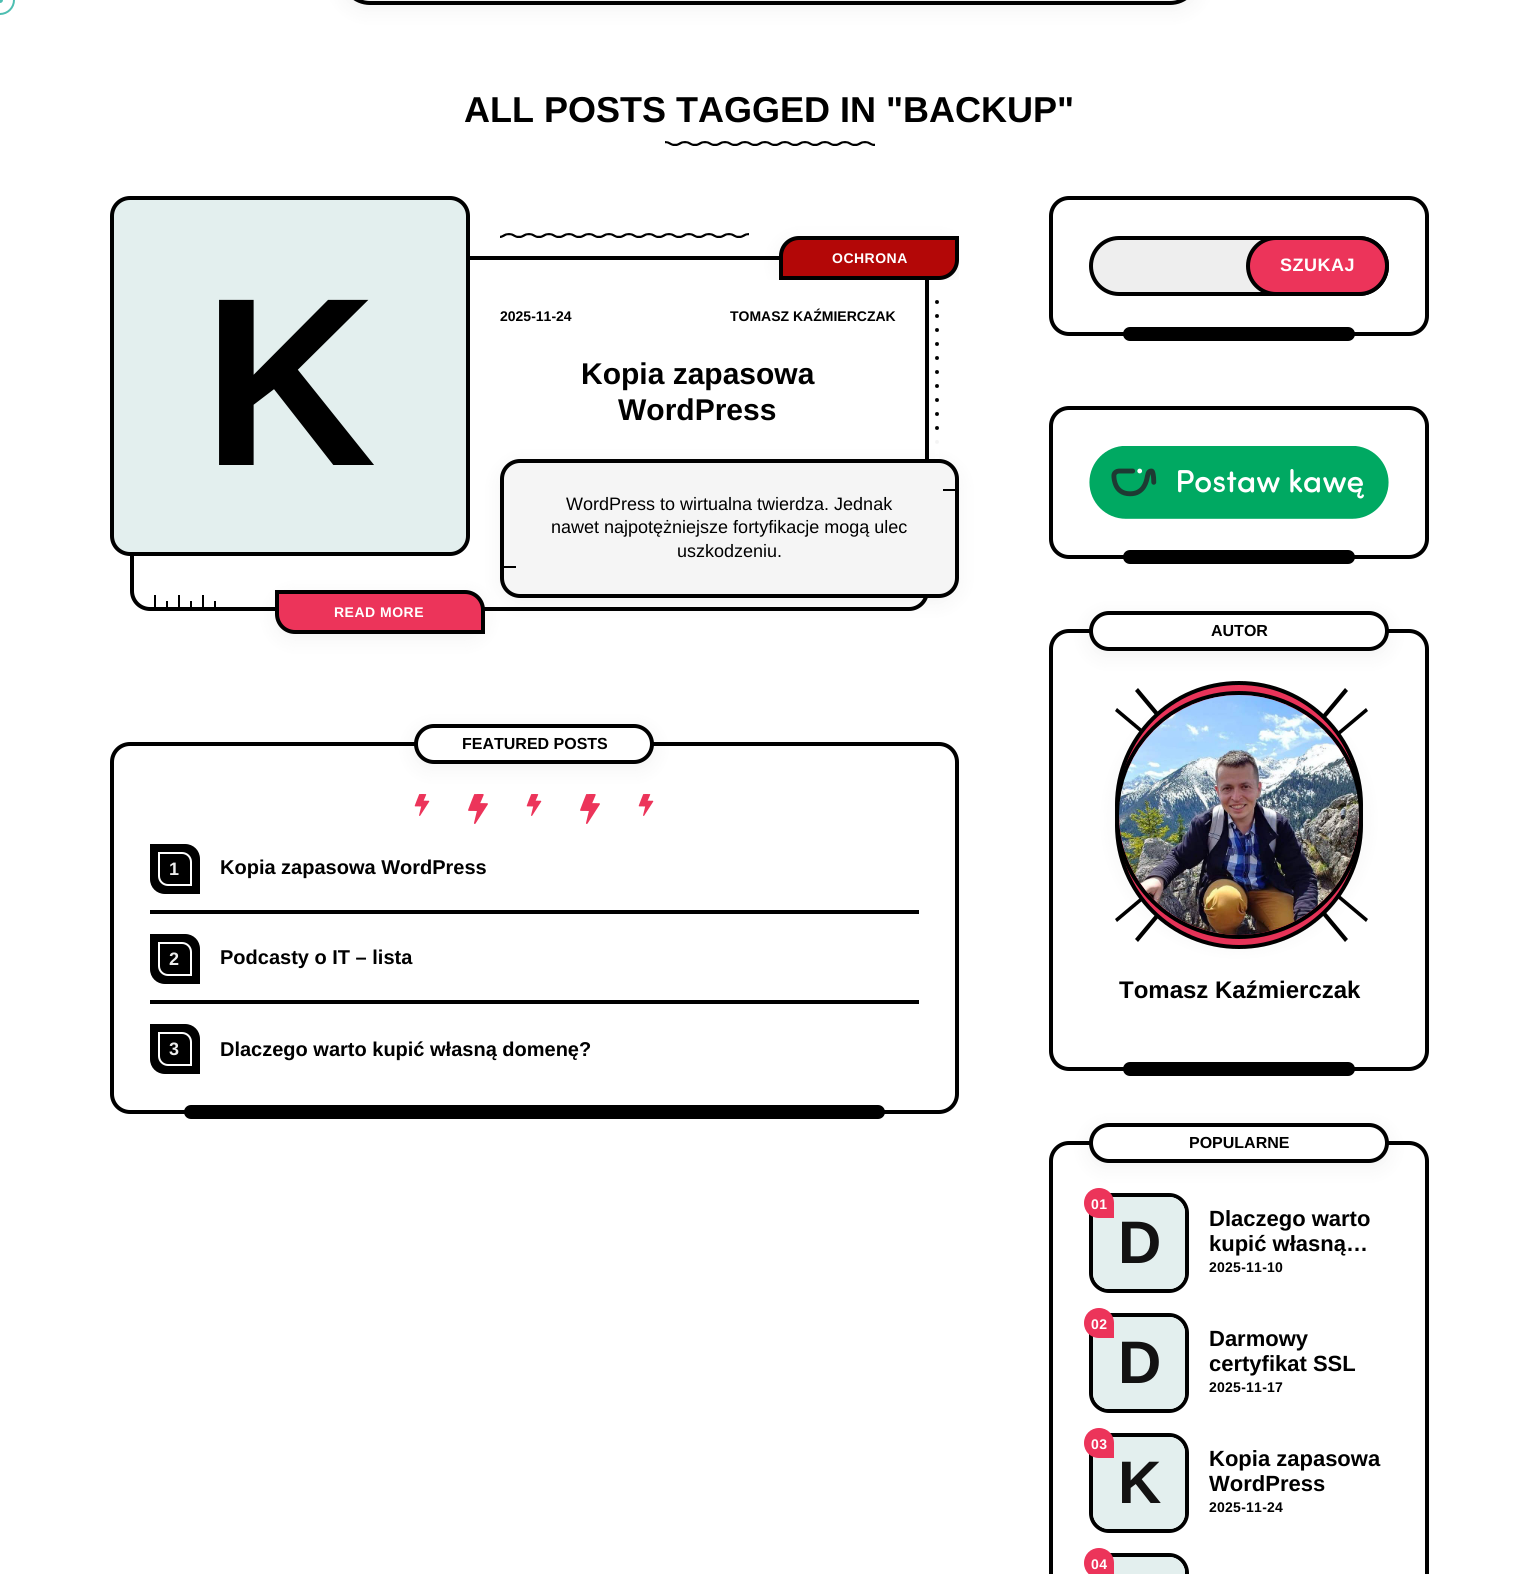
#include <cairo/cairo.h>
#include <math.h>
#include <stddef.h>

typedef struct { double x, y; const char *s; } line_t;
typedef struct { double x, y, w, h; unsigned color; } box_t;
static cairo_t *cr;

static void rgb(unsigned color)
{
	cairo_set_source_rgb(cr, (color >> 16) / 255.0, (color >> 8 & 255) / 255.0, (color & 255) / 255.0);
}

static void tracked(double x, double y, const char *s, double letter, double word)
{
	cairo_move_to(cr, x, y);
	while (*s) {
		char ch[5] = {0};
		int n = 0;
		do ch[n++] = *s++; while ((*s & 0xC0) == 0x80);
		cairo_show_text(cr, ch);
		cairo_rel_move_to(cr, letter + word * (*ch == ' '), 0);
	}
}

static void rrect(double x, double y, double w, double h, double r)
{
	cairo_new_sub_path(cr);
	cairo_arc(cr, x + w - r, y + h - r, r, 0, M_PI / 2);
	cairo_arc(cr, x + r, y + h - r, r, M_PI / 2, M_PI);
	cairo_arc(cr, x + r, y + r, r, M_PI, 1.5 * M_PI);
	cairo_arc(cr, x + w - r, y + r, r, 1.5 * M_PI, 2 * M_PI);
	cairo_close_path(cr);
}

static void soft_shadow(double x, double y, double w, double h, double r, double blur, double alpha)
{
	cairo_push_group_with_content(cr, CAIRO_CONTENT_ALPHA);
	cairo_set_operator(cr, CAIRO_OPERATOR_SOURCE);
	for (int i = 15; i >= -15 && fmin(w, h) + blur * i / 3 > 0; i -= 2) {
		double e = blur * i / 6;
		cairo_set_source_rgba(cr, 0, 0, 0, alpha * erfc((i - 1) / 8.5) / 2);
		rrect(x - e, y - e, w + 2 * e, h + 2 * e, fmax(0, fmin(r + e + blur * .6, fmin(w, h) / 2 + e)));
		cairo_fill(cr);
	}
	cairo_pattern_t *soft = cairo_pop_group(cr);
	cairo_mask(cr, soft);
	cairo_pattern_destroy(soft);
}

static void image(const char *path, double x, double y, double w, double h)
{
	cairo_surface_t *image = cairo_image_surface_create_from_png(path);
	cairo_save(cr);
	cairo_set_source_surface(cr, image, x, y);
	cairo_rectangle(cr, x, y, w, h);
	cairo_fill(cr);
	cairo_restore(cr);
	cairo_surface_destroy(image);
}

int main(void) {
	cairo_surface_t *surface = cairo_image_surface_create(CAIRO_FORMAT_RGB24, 1539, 1574);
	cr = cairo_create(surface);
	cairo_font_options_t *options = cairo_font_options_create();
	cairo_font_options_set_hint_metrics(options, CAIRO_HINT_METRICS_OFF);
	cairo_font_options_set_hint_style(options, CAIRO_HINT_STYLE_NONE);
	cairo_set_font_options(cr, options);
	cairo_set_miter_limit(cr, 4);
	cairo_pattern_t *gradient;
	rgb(0xffffff);
	cairo_paint(cr);
	cairo_arc(cr, 0, 0, 14, 0, 2 * M_PI);
	rgb(0x4dbeb1);
	cairo_stroke(cr);
	rgb(0x000000);
	soft_shadow(340, -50, 860, 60, 30, 10, 0.05);
	rrect(342, -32, 856, 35, 28);
	rgb(0x000000);
	cairo_set_line_width(cr, 4);
	cairo_stroke(cr);
	rgb(0x4dbeb1);
	cairo_arc(cr, 0, 0, 3, 0, 2 * M_PI);
	cairo_fill(cr);
	image("img/1.png", 665, 141, 210, 5);
	rrect(132, 258, 795, 351, 18);
	rgb(0x000000);
	cairo_stroke(cr);
	rgb(0xe3efee);
	rrect(112, 198, 356, 356, 18);
	cairo_fill_preserve(cr);
	rgb(0x000000);
	cairo_stroke(cr);
	image("img/2.png", 500, 233, 249, 5);
	image("img/3.png", 935, 300, 4, 157);
	cairo_save(cr);
	cairo_rectangle(cr, 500, 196, 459, 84);
	cairo_clip(cr);
	rgb(0x000000);
	soft_shadow(779, 241, 180, 44, 20, 10, 0.05);
	cairo_restore(cr);
	rgb(0xb30707);
	cairo_new_path(cr);
	cairo_move_to(cr, 799, 238);
	cairo_line_to(cr, 957, 238);
	cairo_line_to(cr, 957, 260);
	cairo_curve_to(cr, 957, 270, 949, 278, 939, 278);
	cairo_line_to(cr, 781, 278);
	cairo_line_to(cr, 781, 256);
	cairo_curve_to(cr, 781, 246, 789, 238, 799, 238);
	cairo_close_path(cr);
	cairo_fill_preserve(cr);
	rgb(0x000000);
	cairo_stroke(cr);
	rgb(0x000000);
	soft_shadow(500, 464, 459, 139, 20, 10, 0.05);
	rgb(0xf5f5f5);
	rrect(502, 461, 455, 135, 18);
	cairo_fill_preserve(cr);
	rgb(0x000000);
	cairo_stroke(cr);
	gradient = cairo_pattern_create_linear(937, 439, 937, 459);
	cairo_pattern_add_color_stop_rgba(gradient, 0, 1, 1, 1, 0.95);
	cairo_pattern_add_color_stop_rgba(gradient, 1, 1, 1, 1, 1);
	cairo_set_source(cr, gradient);
	cairo_pattern_destroy(gradient);
	cairo_rectangle(cr, 935, 439, 4, 20);
	cairo_fill(cr);
	{
		static const box_t items[] = {
			{943, 489, 12, 2, 0x000000},
			{504, 566, 12, 2, 0x000000},
			{154, 595, 2, 12, 0x000000},
			{166, 601, 2, 6, 0x000000},
			{178, 595, 2, 12, 0x000000},
			{190, 601, 2, 6, 0x000000},
			{202, 595, 2, 12, 0x000000},
			{214, 601, 2, 6, 0x000000},
		};
		for (size_t i = 0; i < sizeof items / sizeof *items; i++) {
			rgb(items[i].color);
			cairo_rectangle(cr, items[i].x, items[i].y, items[i].w, items[i].h);
			cairo_fill(cr);
		}
	}
	rgb(0x000000);
	soft_shadow(275, 595, 210, 44, 20, 10, 0.05);
	rgb(0xec345a);
	cairo_new_path(cr);
	cairo_move_to(cr, 277, 592);
	cairo_line_to(cr, 465, 592);
	cairo_curve_to(cr, 475, 592, 483, 600, 483, 610);
	cairo_line_to(cr, 483, 632);
	cairo_line_to(cr, 295, 632);
	cairo_curve_to(cr, 285, 632, 277, 624, 277, 614);
	cairo_close_path(cr);
	cairo_fill_preserve(cr);
	rgb(0x000000);
	cairo_stroke(cr);
	rrect(112, 744, 845, 368, 18);
	cairo_stroke(cr);
	image("img/4.png", 414, 794, 16, 22);
	image("img/5.png", 468, 794, 20, 30);
	image("img/4.png", 526, 794, 16, 22);
	image("img/5.png", 580, 794, 20, 30);
	image("img/4.png", 638, 794, 16, 22);
	rgb(0x000000);
	soft_shadow(414, 729, 240, 40, 20, 10, 0.05);
	rgb(0xffffff);
	rrect(416, 726, 236, 36, 18);
	cairo_fill_preserve(cr);
	rgb(0x000000);
	cairo_stroke(cr);
	cairo_rectangle(cr, 150, 910, 769, 4);
	cairo_fill(cr);
	cairo_new_path(cr);
	cairo_move_to(cr, 150, 844);
	cairo_line_to(cr, 185, 844);
	cairo_curve_to(cr, 193.5, 844, 200, 850.5, 200, 859);
	cairo_line_to(cr, 200, 894);
	cairo_line_to(cr, 165, 894);
	cairo_curve_to(cr, 156.5, 894, 150, 887.5, 150, 879);
	cairo_close_path(cr);
	cairo_fill(cr);
	cairo_new_path(cr);
	cairo_move_to(cr, 159, 853);
	cairo_line_to(cr, 182, 853);
	cairo_curve_to(cr, 187, 853, 191, 857, 191, 862);
	cairo_line_to(cr, 191, 885);
	cairo_line_to(cr, 168, 885);
	cairo_curve_to(cr, 163, 885, 159, 881, 159, 876);
	cairo_close_path(cr);
	rgb(0xffffff);
	cairo_set_line_width(cr, 2);
	cairo_stroke(cr);
	rgb(0x000000);
	cairo_rectangle(cr, 150, 1000, 769, 4);
	cairo_fill(cr);
	cairo_new_path(cr);
	cairo_move_to(cr, 150, 934);
	cairo_line_to(cr, 185, 934);
	cairo_curve_to(cr, 193.5, 934, 200, 940.5, 200, 949);
	cairo_line_to(cr, 200, 984);
	cairo_line_to(cr, 165, 984);
	cairo_curve_to(cr, 156.5, 984, 150, 977.5, 150, 969);
	cairo_close_path(cr);
	cairo_fill(cr);
	cairo_new_path(cr);
	cairo_move_to(cr, 159, 943);
	cairo_line_to(cr, 182, 943);
	cairo_curve_to(cr, 187, 943, 191, 947, 191, 952);
	cairo_line_to(cr, 191, 975);
	cairo_line_to(cr, 168, 975);
	cairo_curve_to(cr, 163, 975, 159, 971, 159, 966);
	cairo_close_path(cr);
	rgb(0xffffff);
	cairo_stroke(cr);
	rgb(0x000000);
	cairo_new_path(cr);
	cairo_move_to(cr, 150, 1024);
	cairo_line_to(cr, 185, 1024);
	cairo_curve_to(cr, 193.5, 1024, 200, 1030.5, 200, 1039);
	cairo_line_to(cr, 200, 1074);
	cairo_line_to(cr, 165, 1074);
	cairo_curve_to(cr, 156.5, 1074, 150, 1067.5, 150, 1059);
	cairo_close_path(cr);
	cairo_fill(cr);
	cairo_new_path(cr);
	cairo_move_to(cr, 159, 1033);
	cairo_line_to(cr, 182, 1033);
	cairo_curve_to(cr, 187, 1033, 191, 1037, 191, 1042);
	cairo_line_to(cr, 191, 1065);
	cairo_line_to(cr, 168, 1065);
	cairo_curve_to(cr, 163, 1065, 159, 1061, 159, 1056);
	cairo_close_path(cr);
	rgb(0xffffff);
	cairo_stroke(cr);
	rgb(0x000000);
	rrect(184, 1105, 701, 14, 7);
	cairo_fill(cr);
	rrect(1051, 198, 376, 136, 18);
	cairo_set_line_width(cr, 4);
	cairo_stroke(cr);
	rgb(0xeeeeee);
	rrect(1091, 238, 296, 56, 28);
	cairo_fill_preserve(cr);
	rgb(0x000000);
	cairo_stroke(cr);
	rgb(0xec345a);
	rrect(1248, 238, 139, 56, 28);
	cairo_fill_preserve(cr);
	rgb(0x000000);
	cairo_stroke(cr);
	rrect(1123, 327, 232, 14, 7);
	cairo_fill(cr);
	rrect(1051, 408, 376, 149, 18);
	cairo_stroke(cr);
	image("img/6.png", 1089, 446, 300, 73);
	rrect(1123, 550, 232, 14, 7);
	cairo_fill(cr);
	cairo_new_path(cr);
	cairo_move_to(cr, 1345, 688);
	cairo_line_to(cr, 1348, 691);
	cairo_line_to(cr, 1138, 942);
	cairo_line_to(cr, 1135, 939);
	cairo_close_path(cr);
	cairo_fill(cr);
	cairo_new_path(cr);
	cairo_move_to(cr, 1366, 708);
	cairo_line_to(cr, 1368, 711);
	cairo_line_to(cr, 1117, 922);
	cairo_line_to(cr, 1115, 919);
	cairo_close_path(cr);
	cairo_fill(cr);
	cairo_new_path(cr);
	cairo_move_to(cr, 1115, 711);
	cairo_line_to(cr, 1117, 708);
	cairo_line_to(cr, 1368, 919);
	cairo_line_to(cr, 1366, 922);
	cairo_close_path(cr);
	cairo_fill(cr);
	cairo_new_path(cr);
	cairo_move_to(cr, 1135, 691);
	cairo_line_to(cr, 1138, 688);
	cairo_line_to(cr, 1348, 939);
	cairo_line_to(cr, 1345, 942);
	cairo_close_path(cr);
	cairo_fill(cr);
	rgb(0xec345a);
	cairo_arc(cr, 1239, 805, 122, 0, 2 * M_PI);
	cairo_fill_preserve(cr);
	rgb(0x000000);
	cairo_stroke(cr);
	rgb(0xec345a);
	cairo_arc(cr, 1239, 825, 122, 0, 2 * M_PI);
	cairo_fill_preserve(cr);
	rgb(0x000000);
	cairo_stroke(cr);
	rrect(1051, 631, 376, 438, 18);
	cairo_stroke(cr);
	rgb(0x000000);
	soft_shadow(1089, 616, 300, 40, 20, 10, 0.05);
	rgb(0xffffff);
	rrect(1091, 613, 296, 36, 18);
	cairo_fill_preserve(cr);
	rgb(0x000000);
	cairo_stroke(cr);
	rgb(0x000000);
	soft_shadow(1115, 696, 248, 248, 124, 10, 0.05);
	cairo_arc(cr, 1239, 815, 122, 0, 2 * M_PI);
	rgb(0x000000);
	cairo_stroke(cr);
	image("img/7.png", 1119, 695, 240, 240);
	rrect(1123, 1062, 232, 14, 7);
	cairo_fill(cr);
	rrect(1051, 1143, 376, 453, 18);
	cairo_stroke(cr);
	rgb(0x000000);
	soft_shadow(1089, 1128, 300, 40, 20, 10, 0.05);
	rgb(0xffffff);
	rrect(1091, 1125, 296, 36, 18);
	cairo_fill_preserve(cr);
	rgb(0x000000);
	cairo_stroke(cr);
	rrect(1091, 1195, 96, 96, 18);
	cairo_stroke(cr);
	rgb(0xe3efee);
	rrect(1093, 1197, 92, 92, 16);
	cairo_fill(cr);
	rgb(0xec345a);
	cairo_new_path(cr);
	cairo_move_to(cr, 1099, 1188);
	cairo_curve_to(cr, 1107.5, 1188, 1114, 1194.5, 1114, 1203);
	cairo_line_to(cr, 1114, 1218);
	cairo_line_to(cr, 1099, 1218);
	cairo_curve_to(cr, 1090.5, 1218, 1084, 1211.5, 1084, 1203);
	cairo_curve_to(cr, 1084, 1194.5, 1090.5, 1188, 1099, 1188);
	cairo_close_path(cr);
	cairo_fill(cr);
	rrect(1091, 1315, 96, 96, 18);
	rgb(0x000000);
	cairo_stroke(cr);
	rgb(0xe3efee);
	rrect(1093, 1317, 92, 92, 16);
	cairo_fill(cr);
	rgb(0xec345a);
	cairo_new_path(cr);
	cairo_move_to(cr, 1099, 1308);
	cairo_curve_to(cr, 1107.5, 1308, 1114, 1314.5, 1114, 1323);
	cairo_line_to(cr, 1114, 1338);
	cairo_line_to(cr, 1099, 1338);
	cairo_curve_to(cr, 1090.5, 1338, 1084, 1331.5, 1084, 1323);
	cairo_curve_to(cr, 1084, 1314.5, 1090.5, 1308, 1099, 1308);
	cairo_close_path(cr);
	cairo_fill(cr);
	rrect(1091, 1435, 96, 96, 18);
	rgb(0x000000);
	cairo_stroke(cr);
	rgb(0xe3efee);
	rrect(1093, 1437, 92, 92, 16);
	cairo_fill(cr);
	rgb(0xec345a);
	cairo_new_path(cr);
	cairo_move_to(cr, 1099, 1428);
	cairo_curve_to(cr, 1107.5, 1428, 1114, 1434.5, 1114, 1443);
	cairo_line_to(cr, 1114, 1458);
	cairo_line_to(cr, 1099, 1458);
	cairo_curve_to(cr, 1090.5, 1458, 1084, 1451.5, 1084, 1443);
	cairo_curve_to(cr, 1084, 1434.5, 1090.5, 1428, 1099, 1428);
	cairo_close_path(cr);
	cairo_fill(cr);
	rrect(1091, 1555, 96, 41, 18);
	rgb(0x000000);
	cairo_stroke(cr);
	rgb(0xe3efee);
	rrect(1093, 1557, 92, 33, 16);
	cairo_fill(cr);
	rgb(0xec345a);
	cairo_new_path(cr);
	cairo_move_to(cr, 1099, 1548);
	cairo_curve_to(cr, 1107.5, 1548, 1114, 1554.5, 1114, 1563);
	cairo_line_to(cr, 1114, 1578);
	cairo_line_to(cr, 1099, 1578);
	cairo_curve_to(cr, 1090.5, 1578, 1084, 1571.5, 1084, 1563);
	cairo_curve_to(cr, 1084, 1554.5, 1090.5, 1548, 1099, 1548);
	cairo_close_path(cr);
	cairo_fill(cr);
	cairo_select_font_face(cr, "Liberation Sans", CAIRO_FONT_SLANT_NORMAL, CAIRO_FONT_WEIGHT_BOLD);
	cairo_set_font_size(cr, 36);
	rgb(0x000000);
	cairo_move_to(cr, 464, 122);
	cairo_show_text(cr, "ALL POSTS TAGGED IN \"BACKUP\"");
	cairo_set_font_size(cr, 240);
	cairo_move_to(cr, 203, 465);
	cairo_show_text(cr, "K");
	cairo_set_font_size(cr, 14);
	rgb(0xffffff);
	tracked(832, 263, "OCHRONA", 0.5, 0);
	rgb(0x000000);
	cairo_move_to(cr, 500, 321);
	cairo_show_text(cr, "2025-11-24");
	cairo_move_to(cr, 730, 321);
	cairo_show_text(cr, "TOMASZ KAŹMIERCZAK");
	cairo_set_font_size(cr, 30);
	cairo_move_to(cr, 581, 384);
	cairo_show_text(cr, "Kopia zapasowa");
	cairo_move_to(cr, 618, 420);
	cairo_show_text(cr, "WordPress");
	cairo_select_font_face(cr, "Liberation Sans", CAIRO_FONT_SLANT_NORMAL, CAIRO_FONT_WEIGHT_NORMAL);
	cairo_set_font_size(cr, 18);
	{
		static const line_t items[] = {
			{566, 510, "WordPress to wirtualna twierdza. Jednak"},
			{551, 533, "nawet najpotężniejsze fortyfikacje mogą ulec"},
			{677, 557, "uszkodzeniu."},
		};
		for (size_t i = 0; i < sizeof items / sizeof *items; i++) {
			cairo_move_to(cr, items[i].x, items[i].y);
			cairo_show_text(cr, items[i].s);
		}
	}
	cairo_select_font_face(cr, "Liberation Sans", CAIRO_FONT_SLANT_NORMAL, CAIRO_FONT_WEIGHT_BOLD);
	cairo_set_font_size(cr, 14);
	rgb(0xffffff);
	tracked(334, 617, "READ MORE", 0.5, 0);
	cairo_set_font_size(cr, 16);
	rgb(0x000000);
	cairo_move_to(cr, 462, 749);
	cairo_show_text(cr, "FEATURED POSTS");
	cairo_set_font_size(cr, 18);
	rgb(0xeeeeee);
	cairo_move_to(cr, 169, 875);
	cairo_show_text(cr, "1");
	cairo_set_font_size(cr, 20);
	rgb(0x000000);
	cairo_move_to(cr, 220, 874);
	cairo_show_text(cr, "Kopia zapasowa WordPress");
	cairo_set_font_size(cr, 18);
	rgb(0xeeeeee);
	cairo_move_to(cr, 169, 965);
	cairo_show_text(cr, "2");
	cairo_set_font_size(cr, 20);
	rgb(0x000000);
	cairo_move_to(cr, 220, 964);
	cairo_show_text(cr, "Podcasty o IT – lista");
	cairo_set_font_size(cr, 18);
	rgb(0xeeeeee);
	cairo_move_to(cr, 169, 1055);
	cairo_show_text(cr, "3");
	cairo_set_font_size(cr, 20);
	rgb(0x000000);
	cairo_move_to(cr, 220, 1056);
	cairo_show_text(cr, "Dlaczego warto kupić własną domenę?");
	cairo_set_font_size(cr, 18);
	rgb(0xffffff);
	tracked(1280, 271, "SZUKAJ", 0.5, 0);
	cairo_set_font_size(cr, 16);
	rgb(0x000000);
	cairo_move_to(cr, 1211, 636);
	cairo_show_text(cr, "AUTOR");
	cairo_set_font_size(cr, 24);
	cairo_move_to(cr, 1119, 998);
	cairo_show_text(cr, "Tomasz Kaźmierczak");
	cairo_set_font_size(cr, 16);
	cairo_move_to(cr, 1189, 1148);
	cairo_show_text(cr, "POPULARNE");
	cairo_set_font_size(cr, 14);
	rgb(0xffffff);
	tracked(1091, 1209, "01", 0.5, 0);
	cairo_set_font_size(cr, 60);
	rgb(0x131212);
	cairo_move_to(cr, 1118, 1263);
	cairo_show_text(cr, "D");
	cairo_set_font_size(cr, 22);
	rgb(0x000000);
	cairo_move_to(cr, 1209, 1226);
	cairo_show_text(cr, "Dlaczego warto");
	cairo_move_to(cr, 1209, 1251);
	cairo_show_text(cr, "kupić własną…");
	cairo_set_font_size(cr, 14);
	tracked(1209, 1272, "2025-11-10", 0.25, 0);
	rgb(0xffffff);
	tracked(1091, 1329, "02", 0.5, 0);
	cairo_set_font_size(cr, 60);
	rgb(0x131212);
	cairo_move_to(cr, 1118, 1383);
	cairo_show_text(cr, "D");
	cairo_set_font_size(cr, 22);
	rgb(0x000000);
	cairo_move_to(cr, 1209, 1346);
	cairo_show_text(cr, "Darmowy");
	cairo_move_to(cr, 1209, 1371);
	cairo_show_text(cr, "certyfikat SSL");
	cairo_set_font_size(cr, 14);
	tracked(1209, 1392, "2025-11-17", 0.25, 0);
	rgb(0xffffff);
	tracked(1091, 1449, "03", 0.5, 0);
	cairo_set_font_size(cr, 60);
	rgb(0x131212);
	cairo_move_to(cr, 1118, 1503);
	cairo_show_text(cr, "K");
	cairo_set_font_size(cr, 22);
	rgb(0x000000);
	cairo_move_to(cr, 1209, 1466);
	cairo_show_text(cr, "Kopia zapasowa");
	cairo_move_to(cr, 1209, 1491);
	cairo_show_text(cr, "WordPress");
	cairo_set_font_size(cr, 14);
	tracked(1209, 1512, "2025-11-24", 0.25, 0);
	rgb(0xffffff);
	tracked(1091, 1569, "04", 0.5, 0);
	cairo_surface_write_to_png(surface, "page.png");
	cairo_font_options_destroy(options);
	cairo_destroy(cr);
	cairo_surface_destroy(surface);
	return 0;
}
